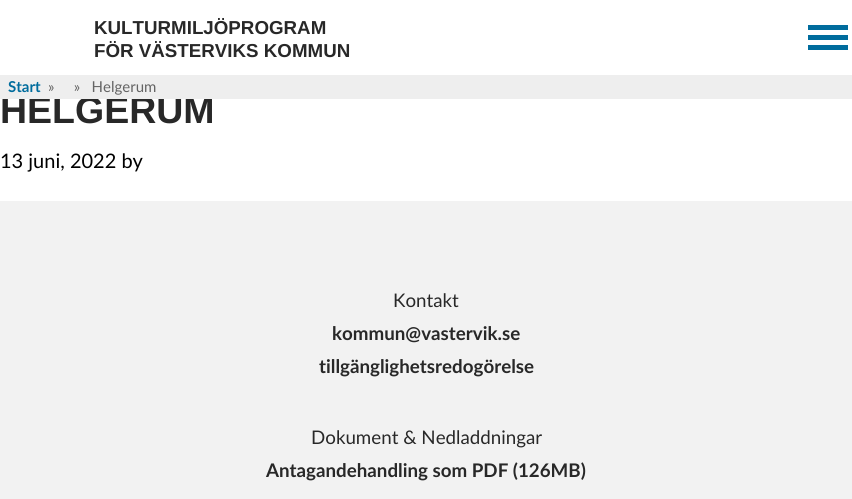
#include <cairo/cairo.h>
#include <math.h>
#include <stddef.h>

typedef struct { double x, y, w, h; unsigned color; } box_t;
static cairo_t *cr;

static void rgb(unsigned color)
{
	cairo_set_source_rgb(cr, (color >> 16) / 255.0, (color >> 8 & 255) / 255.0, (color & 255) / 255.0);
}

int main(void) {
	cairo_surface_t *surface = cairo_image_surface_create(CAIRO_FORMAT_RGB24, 852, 499);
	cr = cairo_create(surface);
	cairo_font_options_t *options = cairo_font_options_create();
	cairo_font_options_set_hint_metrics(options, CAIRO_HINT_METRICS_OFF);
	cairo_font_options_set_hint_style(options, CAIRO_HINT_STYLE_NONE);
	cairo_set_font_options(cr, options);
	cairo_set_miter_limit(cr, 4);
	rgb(0xffffff);
	cairo_paint(cr);
	{
		static const box_t items[] = {
			{808, 25, 40, 5, 0x006c9d},
			{808, 35, 40, 5, 0x006c9d},
			{808, 45, 40, 5, 0x006c9d},
			{0, 201, 852, 298, 0xf2f2f2},
		};
		for (size_t i = 0; i < sizeof items / sizeof *items; i++) {
			rgb(items[i].color);
			cairo_rectangle(cr, items[i].x, items[i].y, items[i].w, items[i].h);
			cairo_fill(cr);
		}
	}
	cairo_select_font_face(cr, "Liberation Sans", CAIRO_FONT_SLANT_NORMAL, CAIRO_FONT_WEIGHT_BOLD);
	cairo_set_font_size(cr, 18.75);
	rgb(0x282828);
	cairo_move_to(cr, 94, 34);
	cairo_show_text(cr, "KULTURMILJÖPROGRAM");
	cairo_move_to(cr, 94, 57);
	cairo_show_text(cr, "FÖR VÄSTERVIKS KOMMUN");
	cairo_set_font_size(cr, 37.5);
	cairo_move_to(cr, 0, 123);
	cairo_show_text(cr, "HELGERUM");
	rgb(0xeeeeee);
	cairo_rectangle(cr, 0, 75, 852, 24);
	cairo_fill(cr);
	cairo_select_font_face(cr, "Lato", CAIRO_FONT_SLANT_NORMAL, CAIRO_FONT_WEIGHT_NORMAL);
	cairo_set_font_size(cr, 15);
	rgb(0x646464);
	cairo_move_to(cr, 48, 92);
	cairo_show_text(cr, "»     »   Helgerum");
	cairo_select_font_face(cr, "Lato", CAIRO_FONT_SLANT_NORMAL, CAIRO_FONT_WEIGHT_BOLD);
	rgb(0x006c9d);
	cairo_move_to(cr, 8, 92);
	cairo_show_text(cr, "Start");
	cairo_select_font_face(cr, "Lato", CAIRO_FONT_SLANT_NORMAL, CAIRO_FONT_WEIGHT_NORMAL);
	cairo_set_font_size(cr, 20);
	rgb(0x000000);
	cairo_move_to(cr, 0, 168);
	cairo_show_text(cr, "13 juni, 2022 by");
	cairo_set_font_size(cr, 18.75);
	rgb(0x282828);
	cairo_move_to(cr, 393, 307);
	cairo_show_text(cr, "Kontakt");
	cairo_select_font_face(cr, "Lato", CAIRO_FONT_SLANT_NORMAL, CAIRO_FONT_WEIGHT_BOLD);
	cairo_move_to(cr, 332, 340);
	cairo_show_text(cr, "kommun@vastervik.se");
	cairo_move_to(cr, 319, 373);
	cairo_show_text(cr, "tillgänglighetsredogörelse");
	cairo_select_font_face(cr, "Lato", CAIRO_FONT_SLANT_NORMAL, CAIRO_FONT_WEIGHT_NORMAL);
	cairo_move_to(cr, 311, 444);
	cairo_show_text(cr, "Dokument & Nedladdningar");
	cairo_select_font_face(cr, "Lato", CAIRO_FONT_SLANT_NORMAL, CAIRO_FONT_WEIGHT_BOLD);
	cairo_move_to(cr, 266, 477);
	cairo_show_text(cr, "Antagandehandling som PDF (126MB)");
	cairo_surface_write_to_png(surface, "page.png");
	cairo_font_options_destroy(options);
	cairo_destroy(cr);
	cairo_surface_destroy(surface);
	return 0;
}
